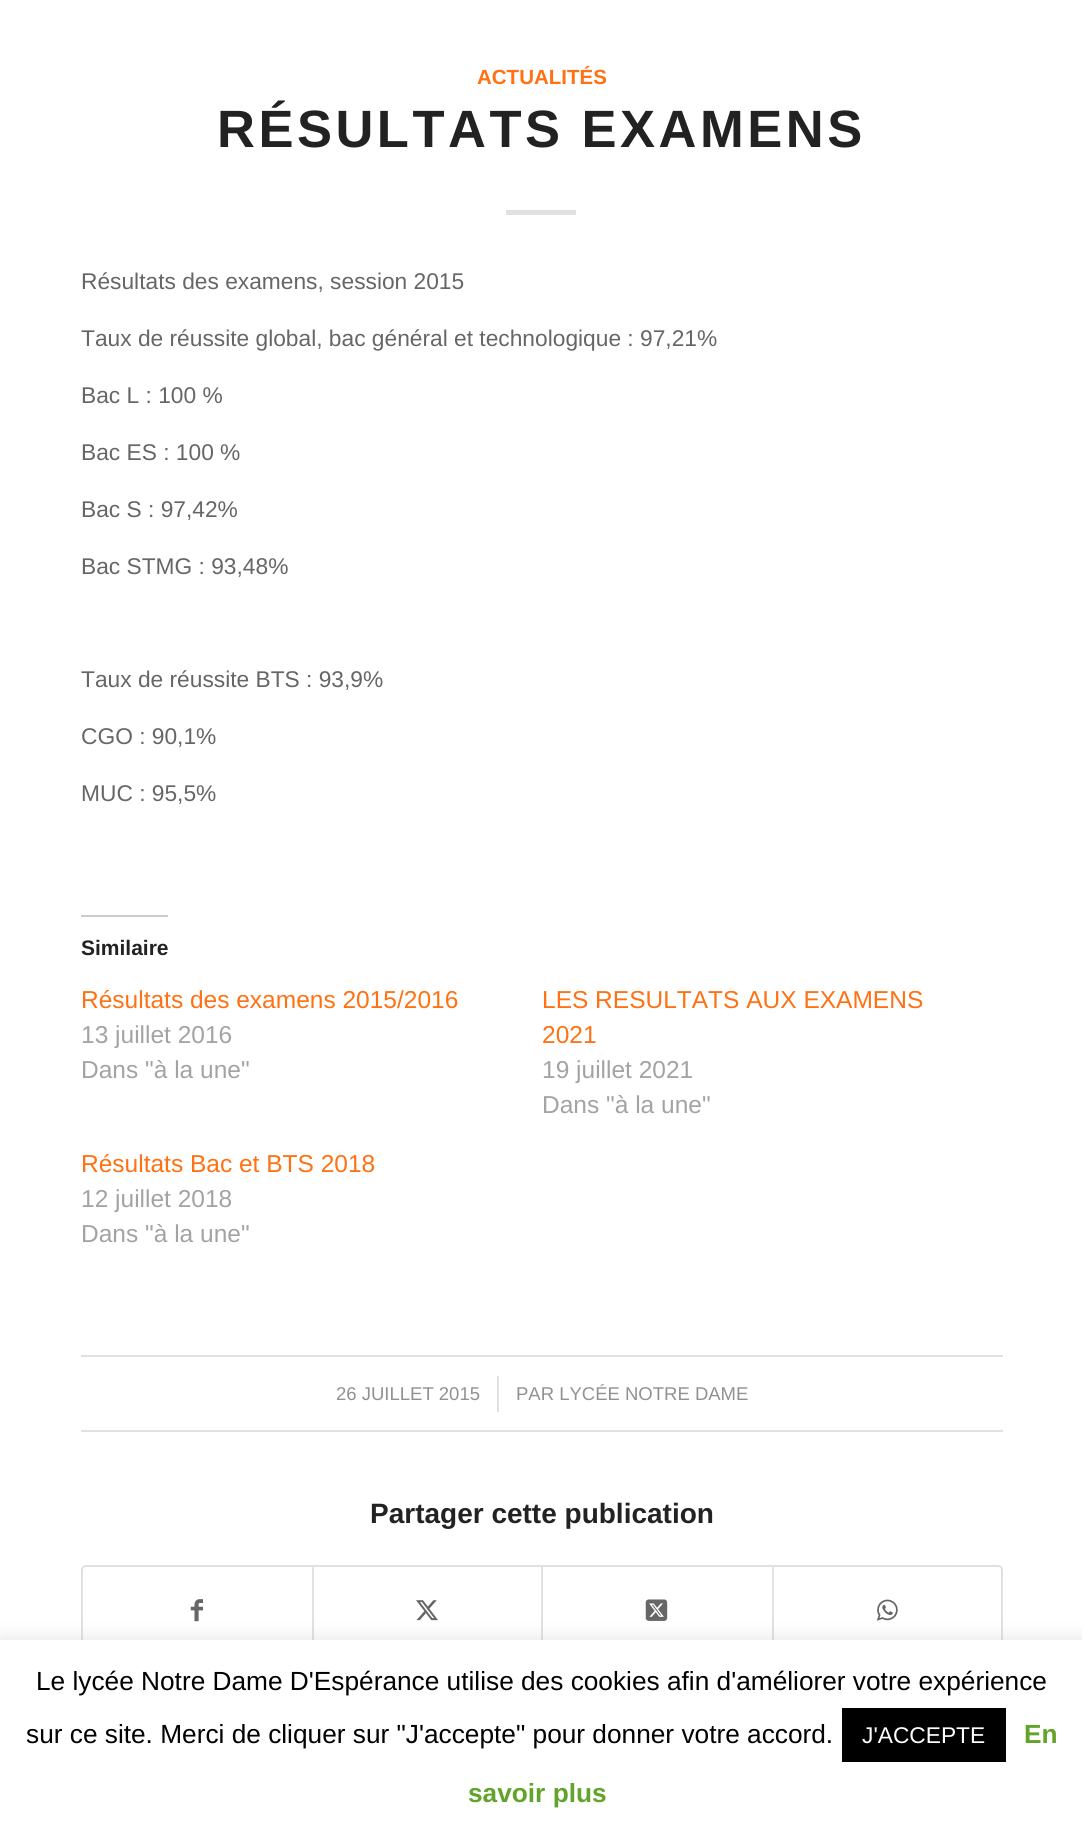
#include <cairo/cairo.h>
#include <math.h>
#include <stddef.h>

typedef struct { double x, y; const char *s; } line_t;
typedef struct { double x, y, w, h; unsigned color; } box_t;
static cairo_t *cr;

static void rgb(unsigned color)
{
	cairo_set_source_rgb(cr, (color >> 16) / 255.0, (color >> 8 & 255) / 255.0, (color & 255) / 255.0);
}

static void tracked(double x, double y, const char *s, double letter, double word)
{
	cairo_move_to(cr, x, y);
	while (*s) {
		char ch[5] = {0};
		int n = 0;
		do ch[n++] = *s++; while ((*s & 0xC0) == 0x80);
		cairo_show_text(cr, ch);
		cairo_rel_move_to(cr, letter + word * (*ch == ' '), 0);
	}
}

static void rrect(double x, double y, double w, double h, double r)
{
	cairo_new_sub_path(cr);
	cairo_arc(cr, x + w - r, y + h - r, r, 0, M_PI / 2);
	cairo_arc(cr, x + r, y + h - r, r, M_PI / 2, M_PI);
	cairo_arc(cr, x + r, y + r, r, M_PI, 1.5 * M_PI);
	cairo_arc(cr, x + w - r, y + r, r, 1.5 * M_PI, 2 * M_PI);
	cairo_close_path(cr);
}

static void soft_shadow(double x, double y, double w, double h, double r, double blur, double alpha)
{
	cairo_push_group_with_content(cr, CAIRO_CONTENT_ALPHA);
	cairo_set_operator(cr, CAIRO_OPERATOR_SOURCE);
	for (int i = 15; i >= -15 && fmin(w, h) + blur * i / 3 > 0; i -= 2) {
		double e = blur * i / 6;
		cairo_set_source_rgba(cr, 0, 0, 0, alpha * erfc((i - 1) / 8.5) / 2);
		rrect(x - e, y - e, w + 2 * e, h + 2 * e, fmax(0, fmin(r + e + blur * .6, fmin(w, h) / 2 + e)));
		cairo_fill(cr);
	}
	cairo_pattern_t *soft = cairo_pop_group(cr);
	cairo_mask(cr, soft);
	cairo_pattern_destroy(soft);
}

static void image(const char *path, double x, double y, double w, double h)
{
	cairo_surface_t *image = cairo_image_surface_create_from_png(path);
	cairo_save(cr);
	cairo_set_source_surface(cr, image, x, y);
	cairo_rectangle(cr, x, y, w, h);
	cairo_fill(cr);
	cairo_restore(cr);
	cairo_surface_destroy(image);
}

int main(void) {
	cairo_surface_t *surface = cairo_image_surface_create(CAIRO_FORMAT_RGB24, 1082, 1831);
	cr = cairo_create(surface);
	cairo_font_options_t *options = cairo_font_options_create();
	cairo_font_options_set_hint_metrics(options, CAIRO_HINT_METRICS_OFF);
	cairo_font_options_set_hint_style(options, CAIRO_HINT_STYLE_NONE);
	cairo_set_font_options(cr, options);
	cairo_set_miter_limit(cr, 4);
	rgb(0xffffff);
	cairo_paint(cr);
	{
		static const box_t items[] = {
			{506, 210, 70, 5, 0xe1e1e1},
			{81, 915, 87, 2, 0xcccccc},
			{81, 1355, 922, 2, 0xe1e1e1},
			{81, 1430, 922, 2, 0xe1e1e1},
			{497, 1376, 2, 36, 0xe1e1e1},
		};
		for (size_t i = 0; i < sizeof items / sizeof *items; i++) {
			rgb(items[i].color);
			cairo_rectangle(cr, items[i].x, items[i].y, items[i].w, items[i].h);
			cairo_fill(cr);
		}
	}
	rrect(82, 1566, 920, 90, 4);
	cairo_stroke(cr);
	image("img/1.png", 190, 1599, 13, 23);
	cairo_rectangle(cr, 312, 1566, 2, 74);
	cairo_fill(cr);
	image("img/2.png", 416, 1600, 22, 21);
	cairo_rectangle(cr, 541, 1566, 2, 74);
	cairo_fill(cr);
	image("img/3.png", 645, 1599, 23, 22);
	cairo_rectangle(cr, 772, 1566, 2, 74);
	cairo_fill(cr);
	image("img/4.png", 876, 1599, 22, 22);
	rgb(0xacabab);
	soft_shadow(0, 1638, 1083, 193, 0, 9, 0.3);
	rgb(0xffffff);
	cairo_rectangle(cr, 0, 1640, 1082, 191);
	cairo_fill(cr);
	rgb(0x000000);
	cairo_rectangle(cr, 842, 1708, 164, 54);
	cairo_fill(cr);
	cairo_select_font_face(cr, "Liberation Sans", CAIRO_FONT_SLANT_NORMAL, CAIRO_FONT_WEIGHT_BOLD);
	cairo_set_font_size(cr, 20.5);
	rgb(0xff7112);
	cairo_move_to(cr, 477, 84);
	cairo_show_text(cr, "ACTUALITÉS");
	cairo_set_font_size(cr, 52.5);
	rgb(0x222222);
	tracked(217, 147, "RÉSULTATS EXAMENS", 3.5, 0);
	cairo_select_font_face(cr, "Liberation Sans", CAIRO_FONT_SLANT_NORMAL, CAIRO_FONT_WEIGHT_NORMAL);
	cairo_set_font_size(cr, 22.75);
	rgb(0x666666);
	{
		static const line_t items[] = {
			{81, 289, "Résultats des examens, session 2015"},
			{81, 346, "Taux de réussite global, bac général et technologique : 97,21%"},
			{81, 403, "Bac L : 100 %"},
			{81, 460, "Bac ES : 100 %"},
			{81, 517, "Bac S : 97,42%"},
			{81, 574, "Bac STMG : 93,48%"},
			{81, 687, "Taux de réussite BTS : 93,9%"},
			{81, 744, "CGO : 90,1%"},
			{81, 801, "MUC : 95,5%"},
		};
		for (size_t i = 0; i < sizeof items / sizeof *items; i++) {
			cairo_move_to(cr, items[i].x, items[i].y);
			cairo_show_text(cr, items[i].s);
		}
	}
	cairo_select_font_face(cr, "Liberation Sans", CAIRO_FONT_SLANT_NORMAL, CAIRO_FONT_WEIGHT_BOLD);
	cairo_set_font_size(cr, 21);
	rgb(0x222222);
	cairo_move_to(cr, 81, 955);
	cairo_show_text(cr, "Similaire");
	cairo_select_font_face(cr, "Liberation Sans", CAIRO_FONT_SLANT_NORMAL, CAIRO_FONT_WEIGHT_NORMAL);
	cairo_set_font_size(cr, 24.5);
	rgb(0xff7112);
	cairo_move_to(cr, 81, 1008);
	cairo_show_text(cr, "Résultats des examens 2015/2016");
	rgb(0xa3a3a3);
	cairo_move_to(cr, 81, 1043);
	cairo_show_text(cr, "13 juillet 2016");
	cairo_move_to(cr, 81, 1078);
	cairo_show_text(cr, "Dans \"à la une\"");
	rgb(0xff7112);
	cairo_move_to(cr, 542, 1008);
	cairo_show_text(cr, "LES RESULTATS AUX EXAMENS");
	cairo_move_to(cr, 542, 1043);
	cairo_show_text(cr, "2021");
	rgb(0xa3a3a3);
	cairo_move_to(cr, 542, 1078);
	cairo_show_text(cr, "19 juillet 2021");
	cairo_move_to(cr, 542, 1113);
	cairo_show_text(cr, "Dans \"à la une\"");
	rgb(0xff7112);
	cairo_move_to(cr, 81, 1172);
	cairo_show_text(cr, "Résultats Bac et BTS 2018");
	rgb(0xa3a3a3);
	cairo_move_to(cr, 81, 1207);
	cairo_show_text(cr, "12 juillet 2018");
	cairo_move_to(cr, 81, 1242);
	cairo_show_text(cr, "Dans \"à la une\"");
	cairo_set_font_size(cr, 18.5);
	rgb(0x919191);
	cairo_move_to(cr, 336, 1400);
	cairo_show_text(cr, "26 JUILLET 2015");
	cairo_move_to(cr, 516, 1400);
	cairo_show_text(cr, "PAR LYCÉE NOTRE DAME");
	cairo_select_font_face(cr, "Liberation Sans", CAIRO_FONT_SLANT_NORMAL, CAIRO_FONT_WEIGHT_BOLD);
	cairo_set_font_size(cr, 28);
	rgb(0x222222);
	cairo_move_to(cr, 370, 1523);
	cairo_show_text(cr, "Partager cette publication");
	cairo_select_font_face(cr, "Liberation Sans", CAIRO_FONT_SLANT_NORMAL, CAIRO_FONT_WEIGHT_NORMAL);
	cairo_set_font_size(cr, 26.25);
	rgb(0x000000);
	cairo_move_to(cr, 36, 1690);
	cairo_show_text(cr, "Le lycée Notre Dame D'Espérance utilise des cookies afin d'améliorer votre expérience");
	cairo_move_to(cr, 26, 1743);
	cairo_show_text(cr, "sur ce site. Merci de cliquer sur \"J'accepte\" pour donner votre accord.");
	cairo_set_font_size(cr, 22.75);
	rgb(0xffffff);
	cairo_move_to(cr, 862, 1743);
	cairo_show_text(cr, "J'ACCEPTE");
	cairo_select_font_face(cr, "Liberation Sans", CAIRO_FONT_SLANT_NORMAL, CAIRO_FONT_WEIGHT_BOLD);
	cairo_set_font_size(cr, 26.25);
	rgb(0x62a329);
	cairo_move_to(cr, 1024, 1743);
	cairo_show_text(cr, "En");
	cairo_move_to(cr, 468, 1802);
	cairo_show_text(cr, "savoir plus");
	cairo_surface_write_to_png(surface, "page.png");
	cairo_font_options_destroy(options);
	cairo_destroy(cr);
	cairo_surface_destroy(surface);
	return 0;
}
